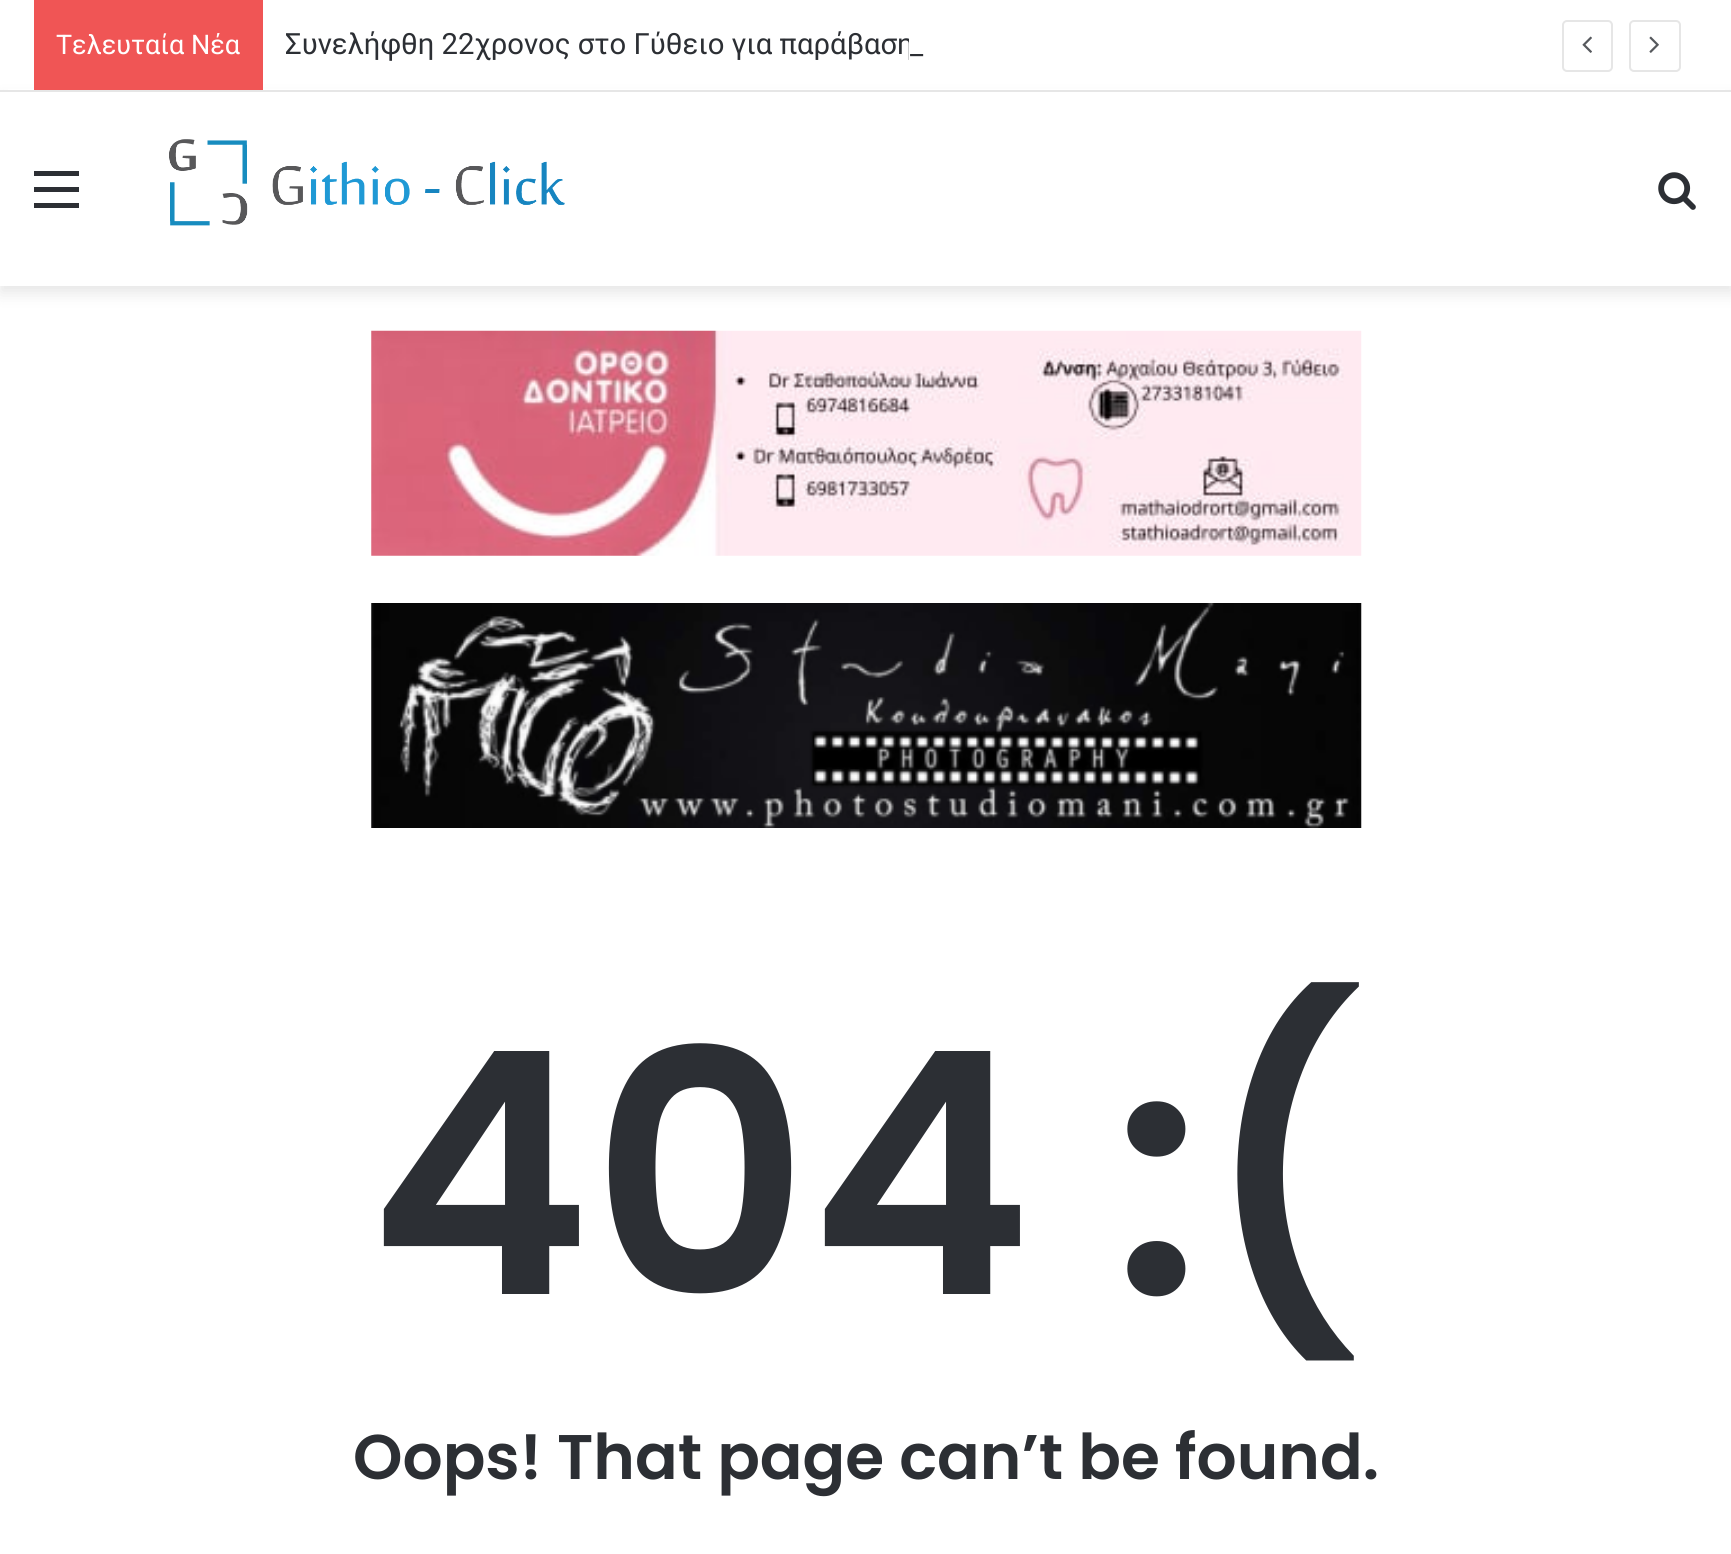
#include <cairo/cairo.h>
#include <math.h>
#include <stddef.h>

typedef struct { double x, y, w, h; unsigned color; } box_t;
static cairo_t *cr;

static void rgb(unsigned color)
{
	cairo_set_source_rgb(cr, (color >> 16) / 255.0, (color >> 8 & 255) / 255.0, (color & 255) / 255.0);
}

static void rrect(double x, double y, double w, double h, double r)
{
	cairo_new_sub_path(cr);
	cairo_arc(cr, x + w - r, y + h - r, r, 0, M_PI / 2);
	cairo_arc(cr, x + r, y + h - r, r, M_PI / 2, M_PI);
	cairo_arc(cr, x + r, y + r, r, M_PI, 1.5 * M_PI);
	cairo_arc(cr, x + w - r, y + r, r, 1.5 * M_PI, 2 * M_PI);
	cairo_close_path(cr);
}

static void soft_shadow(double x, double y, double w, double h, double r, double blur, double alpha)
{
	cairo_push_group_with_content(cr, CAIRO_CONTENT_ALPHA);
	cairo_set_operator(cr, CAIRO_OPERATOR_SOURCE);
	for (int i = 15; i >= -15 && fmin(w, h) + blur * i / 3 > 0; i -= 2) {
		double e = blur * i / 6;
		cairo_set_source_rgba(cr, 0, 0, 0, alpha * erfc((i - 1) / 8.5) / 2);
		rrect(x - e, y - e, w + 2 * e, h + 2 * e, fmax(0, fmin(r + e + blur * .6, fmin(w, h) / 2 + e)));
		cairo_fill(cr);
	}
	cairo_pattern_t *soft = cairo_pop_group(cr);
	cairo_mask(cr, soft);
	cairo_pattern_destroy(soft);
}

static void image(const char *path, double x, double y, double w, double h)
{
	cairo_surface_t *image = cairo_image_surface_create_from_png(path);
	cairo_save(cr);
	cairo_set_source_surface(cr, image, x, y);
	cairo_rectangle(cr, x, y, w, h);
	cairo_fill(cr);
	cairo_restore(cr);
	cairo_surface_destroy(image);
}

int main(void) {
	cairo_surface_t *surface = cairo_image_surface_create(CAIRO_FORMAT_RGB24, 1731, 1554);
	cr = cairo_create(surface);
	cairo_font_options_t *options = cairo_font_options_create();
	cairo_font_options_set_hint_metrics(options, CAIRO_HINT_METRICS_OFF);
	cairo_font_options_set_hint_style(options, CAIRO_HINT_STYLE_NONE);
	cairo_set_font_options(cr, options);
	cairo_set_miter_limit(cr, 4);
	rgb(0xffffff);
	cairo_paint(cr);
	rgb(0x000000);
	soft_shadow(0, 99, 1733, 194, 0, 8, 0.1);
	{
		static const box_t items[] = {
			{8, 89, 1717, 1, 0xffffff},
			{0, 90, 1731, 2, 0xe6e6e6},
			{34, 0, 229, 90, 0xf05555},
		};
		for (size_t i = 0; i < sizeof items / sizeof *items; i++) {
			rgb(items[i].color);
			cairo_rectangle(cr, items[i].x, items[i].y, items[i].w, items[i].h);
			cairo_fill(cr);
		}
	}
	rrect(1563, 21, 49, 50, 4);
	rgb(0xe6e6e6);
	cairo_stroke(cr);
	image("img/1.png", 1582, 36, 10, 17);
	rrect(1630, 21, 50, 50, 4);
	cairo_stroke(cr);
	image("img/2.png", 1649, 36, 10, 17);
	{
		static const box_t items[] = {
			{0, 92, 1731, 194, 0xffffff},
			{34, 187, 45, 5, 0x2c2f34},
			{34, 171, 45, 5, 0x2c2f34},
			{34, 203, 45, 5, 0x2c2f34},
		};
		for (size_t i = 0; i < sizeof items / sizeof *items; i++) {
			rgb(items[i].color);
			cairo_rectangle(cr, items[i].x, items[i].y, items[i].w, items[i].h);
			cairo_fill(cr);
		}
	}
	image("img/3.png", 169, 139, 396, 87);
	image("img/4.png", 1658, 172, 38, 38);
	image("img/5.png", 371, 330, 991, 226);
	image("img/6.png", 371, 603, 991, 225);
	cairo_select_font_face(cr, "Roboto", CAIRO_FONT_SLANT_NORMAL, CAIRO_FONT_WEIGHT_NORMAL);
	cairo_set_font_size(cr, 27);
	rgb(0xffffff);
	cairo_move_to(cr, 56, 54);
	cairo_show_text(cr, "Τελευταία Νέα");
	cairo_set_font_size(cr, 29.25);
	rgb(0x2c2f34);
	cairo_move_to(cr, 285, 54);
	cairo_show_text(cr, "Συνελήφθη 22χρονος στο Γύθειο για παράβαση");
	rgb(0xffffff);
	cairo_rectangle(cr, 909, 38, 3, 22);
	cairo_fill(cr);
	rgb(0x2c2f34);
	cairo_move_to(cr, 910, 54);
	cairo_show_text(cr, "_");
	cairo_select_font_face(cr, "Poppins SemiBold", CAIRO_FONT_SLANT_NORMAL, CAIRO_FONT_WEIGHT_NORMAL);
	cairo_set_font_size(cr, 337.5);
	cairo_move_to(cr, 368, 1294);
	cairo_show_text(cr, "404 :(");
	cairo_set_font_size(cr, 63);
	cairo_move_to(cr, 353, 1479);
	cairo_show_text(cr, "Oops! That page can’t be found.");
	cairo_surface_write_to_png(surface, "page.png");
	cairo_font_options_destroy(options);
	cairo_destroy(cr);
	cairo_surface_destroy(surface);
	return 0;
}
